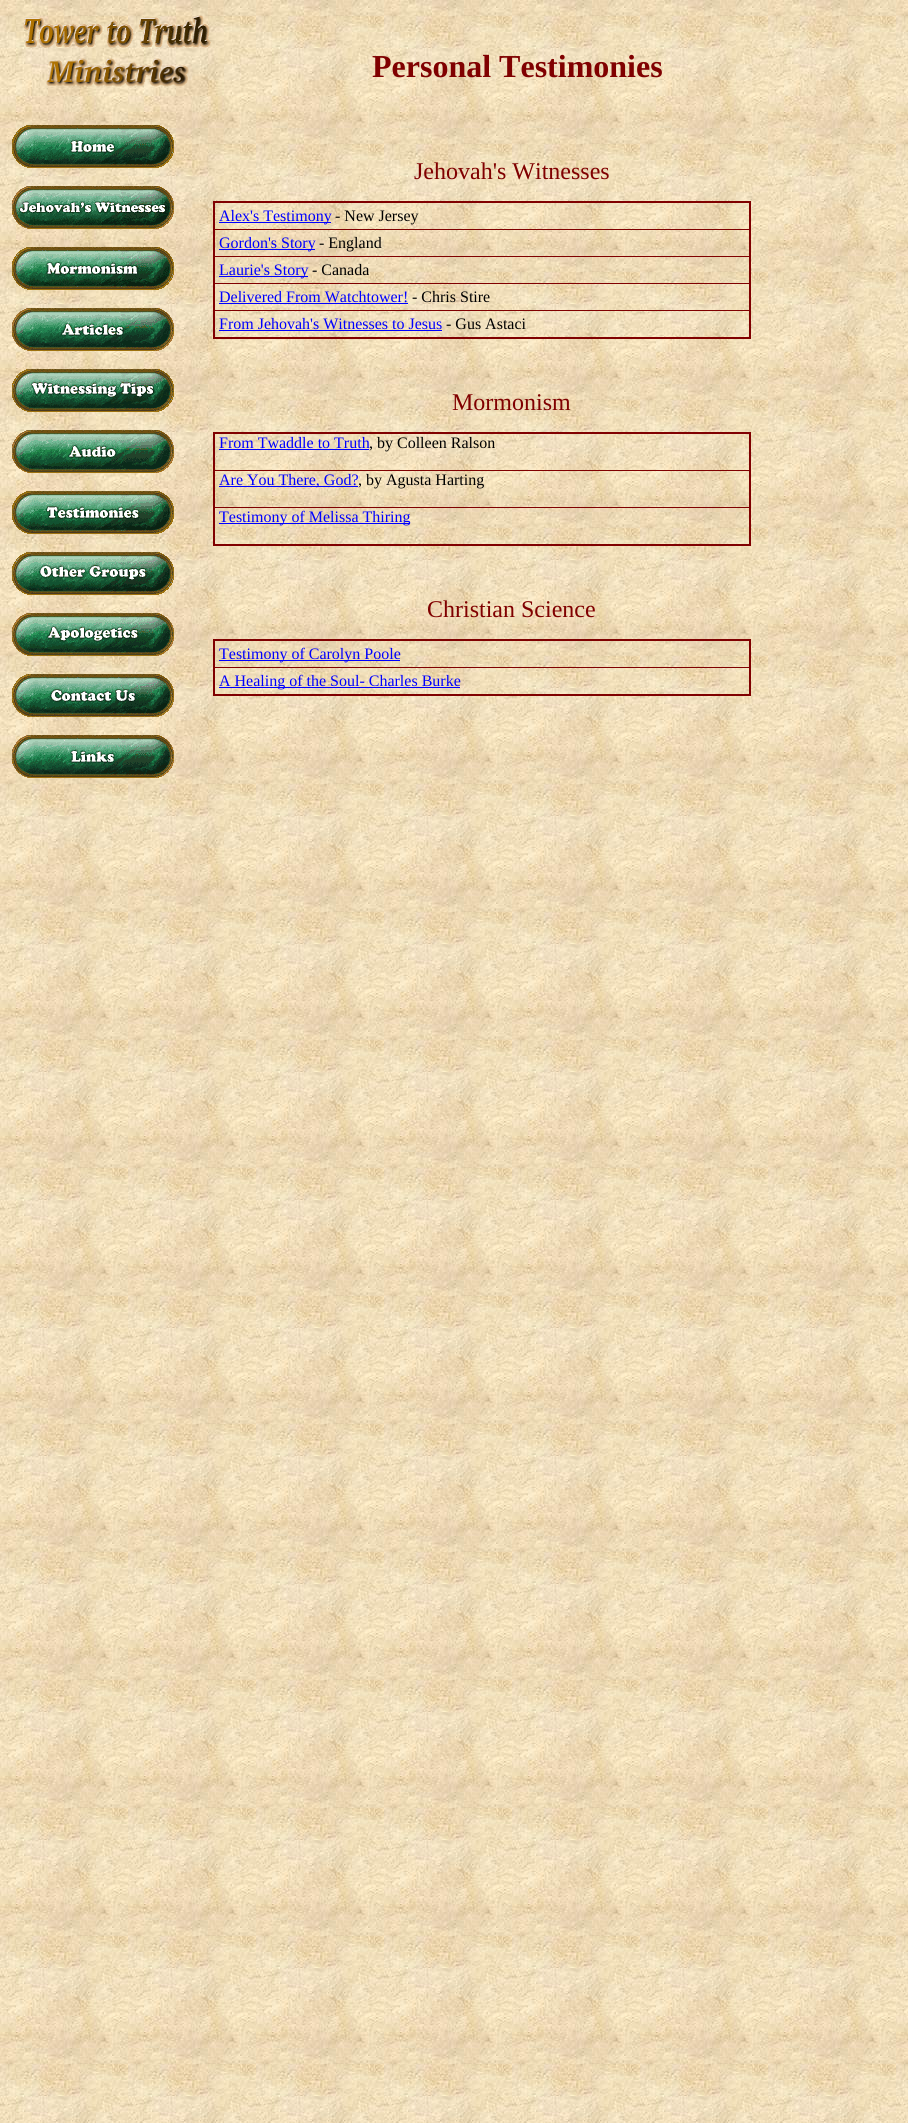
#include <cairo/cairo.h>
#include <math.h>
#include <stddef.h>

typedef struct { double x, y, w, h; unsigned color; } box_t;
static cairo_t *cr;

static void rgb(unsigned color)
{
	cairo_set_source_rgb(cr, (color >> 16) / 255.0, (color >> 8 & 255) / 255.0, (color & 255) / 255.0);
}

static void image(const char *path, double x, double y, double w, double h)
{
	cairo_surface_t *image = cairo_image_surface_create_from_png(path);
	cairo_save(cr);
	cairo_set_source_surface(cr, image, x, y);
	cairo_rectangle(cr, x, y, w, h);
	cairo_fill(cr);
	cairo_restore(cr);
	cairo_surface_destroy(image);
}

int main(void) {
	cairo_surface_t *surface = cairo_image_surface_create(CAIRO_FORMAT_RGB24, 908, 2123);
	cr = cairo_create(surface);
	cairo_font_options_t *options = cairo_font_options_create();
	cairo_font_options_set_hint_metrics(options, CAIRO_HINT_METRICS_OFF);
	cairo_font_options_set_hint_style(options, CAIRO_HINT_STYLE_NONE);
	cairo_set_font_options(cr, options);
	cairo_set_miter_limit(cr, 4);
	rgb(0xffffff);
	cairo_paint(cr);
	image("img/1.png", 0, 0, 908, 2123);
	image("img/2.png", 23, 15, 188, 33);
	image("img/3.png", 46, 58, 143, 29);
	image("img/4.png", 12, 125, 162, 43);
	image("img/5.png", 12, 186, 162, 43);
	image("img/6.png", 12, 247, 162, 43);
	image("img/7.png", 12, 308, 162, 43);
	image("img/8.png", 12, 369, 162, 43);
	image("img/9.png", 12, 430, 162, 43);
	image("img/10.png", 12, 491, 162, 43);
	image("img/11.png", 12, 552, 162, 43);
	image("img/12.png", 12, 613, 162, 43);
	image("img/13.png", 12, 674, 162, 43);
	image("img/14.png", 12, 735, 162, 43);
	{
		static const box_t items[] = {
			{213, 201, 538, 2, 0x800000},
			{213, 229, 537, 1, 0x800000},
			{213, 256, 537, 1, 0x800000},
			{213, 283, 537, 1, 0x800000},
			{213, 310, 537, 1, 0x800000},
			{749, 201, 2, 138, 0x800000},
			{213, 337, 538, 2, 0x800000},
			{213, 201, 2, 138, 0x800000},
			{219, 222, 112, 1, 0x0000ff},
			{219, 249, 96, 1, 0x0000ff},
			{219, 276, 89, 1, 0x0000ff},
			{219, 303, 189, 1, 0x0000ff},
			{219, 330, 223, 1, 0x0000ff},
			{213, 432, 538, 2, 0x800000},
			{213, 470, 537, 1, 0x800000},
			{213, 507, 537, 1, 0x800000},
			{749, 432, 2, 114, 0x800000},
			{213, 544, 538, 2, 0x800000},
			{213, 432, 2, 114, 0x800000},
			{219, 449, 150, 1, 0x0000ff},
			{219, 486, 139, 1, 0x0000ff},
			{219, 523, 191, 1, 0x0000ff},
			{213, 639, 538, 2, 0x800000},
			{213, 667, 537, 1, 0x800000},
			{749, 639, 2, 57, 0x800000},
			{213, 694, 538, 2, 0x800000},
			{213, 639, 2, 57, 0x800000},
			{219, 660, 181, 1, 0x0000ff},
			{219, 687, 241, 1, 0x0000ff},
		};
		for (size_t i = 0; i < sizeof items / sizeof *items; i++) {
			rgb(items[i].color);
			cairo_rectangle(cr, items[i].x, items[i].y, items[i].w, items[i].h);
			cairo_fill(cr);
		}
	}
	cairo_select_font_face(cr, "Liberation Serif", CAIRO_FONT_SLANT_NORMAL, CAIRO_FONT_WEIGHT_BOLD);
	cairo_set_font_size(cr, 32);
	rgb(0x800000);
	cairo_move_to(cr, 372, 77);
	cairo_show_text(cr, "Personal Testimonies");
	cairo_select_font_face(cr, "Liberation Serif", CAIRO_FONT_SLANT_NORMAL, CAIRO_FONT_WEIGHT_NORMAL);
	cairo_set_font_size(cr, 24);
	cairo_move_to(cr, 414, 179);
	cairo_show_text(cr, "Jehovah's Witnesses");
	cairo_set_font_size(cr, 16);
	rgb(0x0000ff);
	cairo_move_to(cr, 219, 221);
	cairo_show_text(cr, "Alex's Testimony");
	rgb(0x000000);
	cairo_move_to(cr, 335, 221);
	cairo_show_text(cr, "- New Jersey");
	rgb(0x0000ff);
	cairo_move_to(cr, 219, 248);
	cairo_show_text(cr, "Gordon's Story");
	rgb(0x000000);
	cairo_move_to(cr, 319, 248);
	cairo_show_text(cr, "- England");
	rgb(0x0000ff);
	cairo_move_to(cr, 219, 275);
	cairo_show_text(cr, "Laurie's Story");
	rgb(0x000000);
	cairo_move_to(cr, 312, 275);
	cairo_show_text(cr, "- Canada");
	rgb(0x0000ff);
	cairo_move_to(cr, 219, 302);
	cairo_show_text(cr, "Delivered From Watchtower!");
	rgb(0x000000);
	cairo_move_to(cr, 412, 302);
	cairo_show_text(cr, "- Chris Stire");
	rgb(0x0000ff);
	cairo_move_to(cr, 219, 329);
	cairo_show_text(cr, "From Jehovah's Witnesses to Jesus");
	rgb(0x000000);
	cairo_move_to(cr, 446, 329);
	cairo_show_text(cr, "- Gus Astaci");
	cairo_set_font_size(cr, 24);
	rgb(0x800000);
	cairo_move_to(cr, 452, 410);
	cairo_show_text(cr, "Mormonism");
	cairo_set_font_size(cr, 16);
	rgb(0x0000ff);
	cairo_move_to(cr, 219, 448);
	cairo_show_text(cr, "From Twaddle to Truth");
	rgb(0x000000);
	cairo_move_to(cr, 369, 448);
	cairo_show_text(cr, ", by Colleen Ralson");
	rgb(0x0000ff);
	cairo_move_to(cr, 219, 485);
	cairo_show_text(cr, "Are You There, God?");
	rgb(0x000000);
	cairo_move_to(cr, 358, 485);
	cairo_show_text(cr, ", by Agusta Harting");
	rgb(0x0000ff);
	cairo_move_to(cr, 219, 522);
	cairo_show_text(cr, "Testimony of Melissa Thiring");
	cairo_set_font_size(cr, 24);
	rgb(0x800000);
	cairo_move_to(cr, 427, 617);
	cairo_show_text(cr, "Christian Science");
	cairo_set_font_size(cr, 16);
	rgb(0x0000ff);
	cairo_move_to(cr, 219, 659);
	cairo_show_text(cr, "Testimony of Carolyn Poole");
	cairo_move_to(cr, 219, 686);
	cairo_show_text(cr, "A Healing of the Soul- Charles Burke");
	cairo_surface_write_to_png(surface, "page.png");
	cairo_font_options_destroy(options);
	cairo_destroy(cr);
	cairo_surface_destroy(surface);
	return 0;
}
